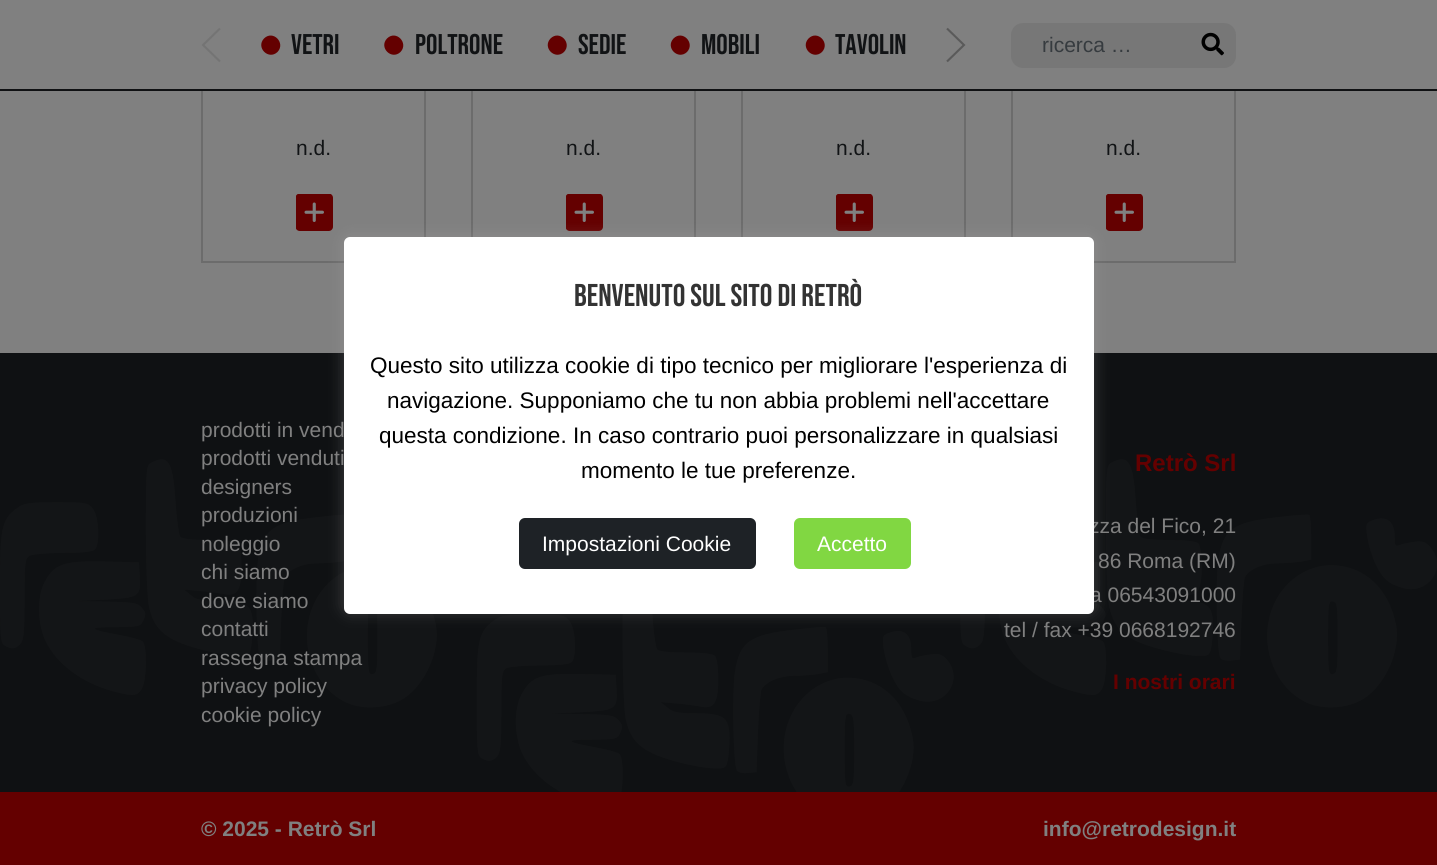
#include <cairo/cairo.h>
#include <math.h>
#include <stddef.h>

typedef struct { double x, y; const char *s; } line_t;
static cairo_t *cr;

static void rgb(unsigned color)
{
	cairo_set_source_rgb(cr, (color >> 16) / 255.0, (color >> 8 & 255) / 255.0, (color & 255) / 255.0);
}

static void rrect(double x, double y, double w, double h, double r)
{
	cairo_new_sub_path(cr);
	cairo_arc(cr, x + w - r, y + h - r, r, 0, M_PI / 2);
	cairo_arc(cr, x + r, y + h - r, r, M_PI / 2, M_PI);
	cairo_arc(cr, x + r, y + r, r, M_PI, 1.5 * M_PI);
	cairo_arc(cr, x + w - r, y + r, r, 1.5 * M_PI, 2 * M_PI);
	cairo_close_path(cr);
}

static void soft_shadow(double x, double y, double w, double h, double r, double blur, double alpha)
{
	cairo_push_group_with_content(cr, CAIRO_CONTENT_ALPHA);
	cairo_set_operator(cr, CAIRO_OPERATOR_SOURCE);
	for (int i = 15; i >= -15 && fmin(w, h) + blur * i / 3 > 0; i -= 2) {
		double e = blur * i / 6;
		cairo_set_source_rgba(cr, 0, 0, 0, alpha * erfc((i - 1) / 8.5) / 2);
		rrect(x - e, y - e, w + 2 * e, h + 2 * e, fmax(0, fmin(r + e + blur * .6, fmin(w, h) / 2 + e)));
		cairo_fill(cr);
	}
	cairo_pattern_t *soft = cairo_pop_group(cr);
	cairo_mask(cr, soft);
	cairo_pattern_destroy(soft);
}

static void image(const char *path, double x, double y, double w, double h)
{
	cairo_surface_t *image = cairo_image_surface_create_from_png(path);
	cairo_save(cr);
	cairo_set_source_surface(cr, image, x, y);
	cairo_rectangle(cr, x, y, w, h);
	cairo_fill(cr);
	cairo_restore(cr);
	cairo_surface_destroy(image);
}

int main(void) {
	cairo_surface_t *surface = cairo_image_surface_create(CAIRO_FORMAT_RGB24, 1437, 865);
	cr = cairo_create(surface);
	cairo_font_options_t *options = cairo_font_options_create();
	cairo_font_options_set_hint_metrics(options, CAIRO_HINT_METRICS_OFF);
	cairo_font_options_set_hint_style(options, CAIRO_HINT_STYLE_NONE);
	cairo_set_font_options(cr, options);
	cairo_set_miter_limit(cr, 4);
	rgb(0x808080);
	cairo_paint(cr);
	cairo_rectangle(cr, 202, -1, 223, 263);
	rgb(0x6c6c6c);
	cairo_stroke(cr);
	cairo_rectangle(cr, 472, -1, 223, 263);
	cairo_stroke(cr);
	cairo_rectangle(cr, 742, -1, 223, 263);
	cairo_stroke(cr);
	cairo_rectangle(cr, 1012, -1, 223, 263);
	cairo_stroke(cr);
	rgb(0x808080);
	cairo_rectangle(cr, 201, 0, 1035, 89);
	cairo_fill(cr);
	rgb(0x101113);
	cairo_rectangle(cr, 0, 89, 1437, 2);
	cairo_fill(cr);
	cairo_new_path(cr);
	cairo_move_to(cr, 220, 28.5);
	cairo_line_to(cr, 203, 45);
	cairo_line_to(cr, 220, 61.5);
	rgb(0x747474);
	cairo_set_line_width(cr, 2.1);
	cairo_stroke(cr);
	rgb(0x640000);
	cairo_new_path(cr);
	cairo_move_to(cr, 264, 38.5);
	cairo_curve_to(cr, 273, 29.5, 286, 43, 277.5, 52);
	cairo_curve_to(cr, 268.5, 60.5, 255.5, 47.5, 264, 38.5);
	cairo_close_path(cr);
	cairo_fill(cr);
	cairo_new_path(cr);
	cairo_move_to(cr, 387, 38.5);
	cairo_curve_to(cr, 396, 29.5, 409, 43, 400.5, 52);
	cairo_curve_to(cr, 391.5, 60.5, 378.5, 47.5, 387, 38.5);
	cairo_close_path(cr);
	cairo_fill(cr);
	cairo_new_path(cr);
	cairo_move_to(cr, 550.5, 38.5);
	cairo_curve_to(cr, 559.5, 29.5, 572.5, 43, 564, 52);
	cairo_curve_to(cr, 555, 60.5, 542, 47.5, 550.5, 38.5);
	cairo_close_path(cr);
	cairo_fill(cr);
	cairo_new_path(cr);
	cairo_move_to(cr, 673.5, 38.5);
	cairo_curve_to(cr, 682.5, 29.5, 695.5, 43, 687, 52);
	cairo_curve_to(cr, 678, 60.5, 665, 47.5, 673.5, 38.5);
	cairo_close_path(cr);
	cairo_fill(cr);
	cairo_new_path(cr);
	cairo_move_to(cr, 808.5, 38.5);
	cairo_curve_to(cr, 817.5, 29.5, 830.5, 43, 822, 52);
	cairo_curve_to(cr, 813, 60.5, 800, 47.5, 808.5, 38.5);
	cairo_close_path(cr);
	cairo_fill(cr);
	cairo_new_path(cr);
	cairo_move_to(cr, 947, 61.5);
	cairo_line_to(cr, 964, 45);
	cairo_line_to(cr, 947, 28.5);
	rgb(0x5a5a5a);
	cairo_stroke(cr);
	rgb(0x777777);
	rrect(1011, 23, 225, 45, 12);
	cairo_fill(cr);
	image("img/1.png", 1201, 32, 23, 24);
	image("img/2.png", 296, 194, 37, 37);
	image("img/2.png", 566, 194, 37, 37);
	image("img/2.png", 836, 194, 37, 37);
	image("img/2.png", 1106, 194, 37, 37);
	rgb(0x0f1113);
	cairo_rectangle(cr, 0, 353, 1437, 439);
	cairo_fill(cr);
	image("img/3.png", 0, 459, 1437, 333);
	rgb(0x640000);
	cairo_rectangle(cr, 0, 792, 1437, 73);
	cairo_fill(cr);
	rgb(0xacabab);
	soft_shadow(344, 236, 750, 376, 6, 7.5, 0.3);
	cairo_select_font_face(cr, "Bebas Neue", CAIRO_FONT_SLANT_NORMAL, CAIRO_FONT_WEIGHT_NORMAL);
	cairo_set_font_size(cr, 28.5);
	rgb(0x111315);
	{
		static const line_t items[] = {
			{291, 54, "Vetri"},
			{415, 54, "Poltrone"},
			{578, 54, "Sedie"},
			{701, 54, "Mobili"},
			{835, 54, "Tavolin"},
		};
		for (size_t i = 0; i < sizeof items / sizeof *items; i++) {
			cairo_move_to(cr, items[i].x, items[i].y);
			cairo_show_text(cr, items[i].s);
		}
	}
	cairo_select_font_face(cr, "Liberation Sans", CAIRO_FONT_SLANT_NORMAL, CAIRO_FONT_WEIGHT_NORMAL);
	cairo_set_font_size(cr, 21);
	rgb(0x363b3f);
	cairo_move_to(cr, 1042, 52);
	cairo_show_text(cr, "ricerca …");
	rgb(0x111315);
	{
		static const line_t items[] = {
			{296, 155, "n.d."},
			{566, 155, "n.d."},
			{836, 155, "n.d."},
			{1106, 155, "n.d."},
		};
		for (size_t i = 0; i < sizeof items / sizeof *items; i++) {
			cairo_move_to(cr, items[i].x, items[i].y);
			cairo_show_text(cr, items[i].s);
		}
	}
	rgb(0x808080);
	{
		static const line_t items[] = {
			{201, 437, "prodotti in vend"},
			{201, 465, "prodotti venduti"},
			{201, 494, "designers"},
			{201, 522, "produzioni"},
			{201, 551, "noleggio"},
			{201, 579, "chi siamo"},
			{201, 608, "dove siamo"},
			{201, 636, "contatti"},
			{201, 665, "rassegna stampa"},
			{201, 693, "privacy policy"},
			{201, 722, "cookie policy"},
		};
		for (size_t i = 0; i < sizeof items / sizeof *items; i++) {
			cairo_move_to(cr, items[i].x, items[i].y);
			cairo_show_text(cr, items[i].s);
		}
	}
	cairo_select_font_face(cr, "Liberation Sans", CAIRO_FONT_SLANT_NORMAL, CAIRO_FONT_WEIGHT_BOLD);
	cairo_set_font_size(cr, 24);
	rgb(0x640000);
	cairo_move_to(cr, 1135, 471);
	cairo_show_text(cr, "Retrò Srl");
	cairo_select_font_face(cr, "Liberation Sans", CAIRO_FONT_SLANT_NORMAL, CAIRO_FONT_WEIGHT_NORMAL);
	cairo_set_font_size(cr, 21);
	rgb(0x808080);
	{
		static const line_t items[] = {
			{1089, 533, "zza del Fico, 21"},
			{1098, 568, "86 Roma (RM)"},
			{1090, 602, "a 06543091000"},
			{1004, 637, "tel / fax +39 0668192746"},
		};
		for (size_t i = 0; i < sizeof items / sizeof *items; i++) {
			cairo_move_to(cr, items[i].x, items[i].y);
			cairo_show_text(cr, items[i].s);
		}
	}
	cairo_select_font_face(cr, "Liberation Sans", CAIRO_FONT_SLANT_NORMAL, CAIRO_FONT_WEIGHT_BOLD);
	rgb(0x640000);
	cairo_move_to(cr, 1113, 689);
	cairo_show_text(cr, "I nostri orari");
	rgb(0x808080);
	cairo_move_to(cr, 201, 836);
	cairo_show_text(cr, "© 2025 - Retrò Srl");
	cairo_move_to(cr, 1043, 836);
	cairo_show_text(cr, "info@retrodesign.it");
	rgb(0xffffff);
	rrect(344, 237, 750, 377, 6);
	cairo_fill(cr);
	cairo_select_font_face(cr, "Bebas Neue", CAIRO_FONT_SLANT_NORMAL, CAIRO_FONT_WEIGHT_NORMAL);
	cairo_set_font_size(cr, 31.5);
	rgb(0x333333);
	cairo_move_to(cr, 574, 306);
	cairo_show_text(cr, "Benvenuto sul sito di Retrò");
	cairo_select_font_face(cr, "Liberation Sans", CAIRO_FONT_SLANT_NORMAL, CAIRO_FONT_WEIGHT_NORMAL);
	cairo_set_font_size(cr, 22.5);
	rgb(0x000000);
	{
		static const line_t items[] = {
			{370, 373, "Questo sito utilizza cookie di tipo tecnico per migliorare l'esperienza di"},
			{387, 408, "navigazione. Supponiamo che tu non abbia problemi nell'accettare"},
			{379, 443, "questa condizione. In caso contrario puoi personalizzare in qualsiasi"},
			{581, 478, "momento le tue preferenze."},
		};
		for (size_t i = 0; i < sizeof items / sizeof *items; i++) {
			cairo_move_to(cr, items[i].x, items[i].y);
			cairo_show_text(cr, items[i].s);
		}
	}
	rgb(0x1e2226);
	rrect(519, 518, 237, 51, 6);
	cairo_fill(cr);
	cairo_set_font_size(cr, 21);
	rgb(0xffffff);
	cairo_move_to(cr, 542, 551);
	cairo_show_text(cr, "Impostazioni Cookie");
	rgb(0x81d742);
	rrect(794, 518, 117, 51, 6);
	cairo_fill(cr);
	rgb(0xffffff);
	cairo_move_to(cr, 817, 551);
	cairo_show_text(cr, "Accetto");
	cairo_surface_write_to_png(surface, "page.png");
	cairo_font_options_destroy(options);
	cairo_destroy(cr);
	cairo_surface_destroy(surface);
	return 0;
}
